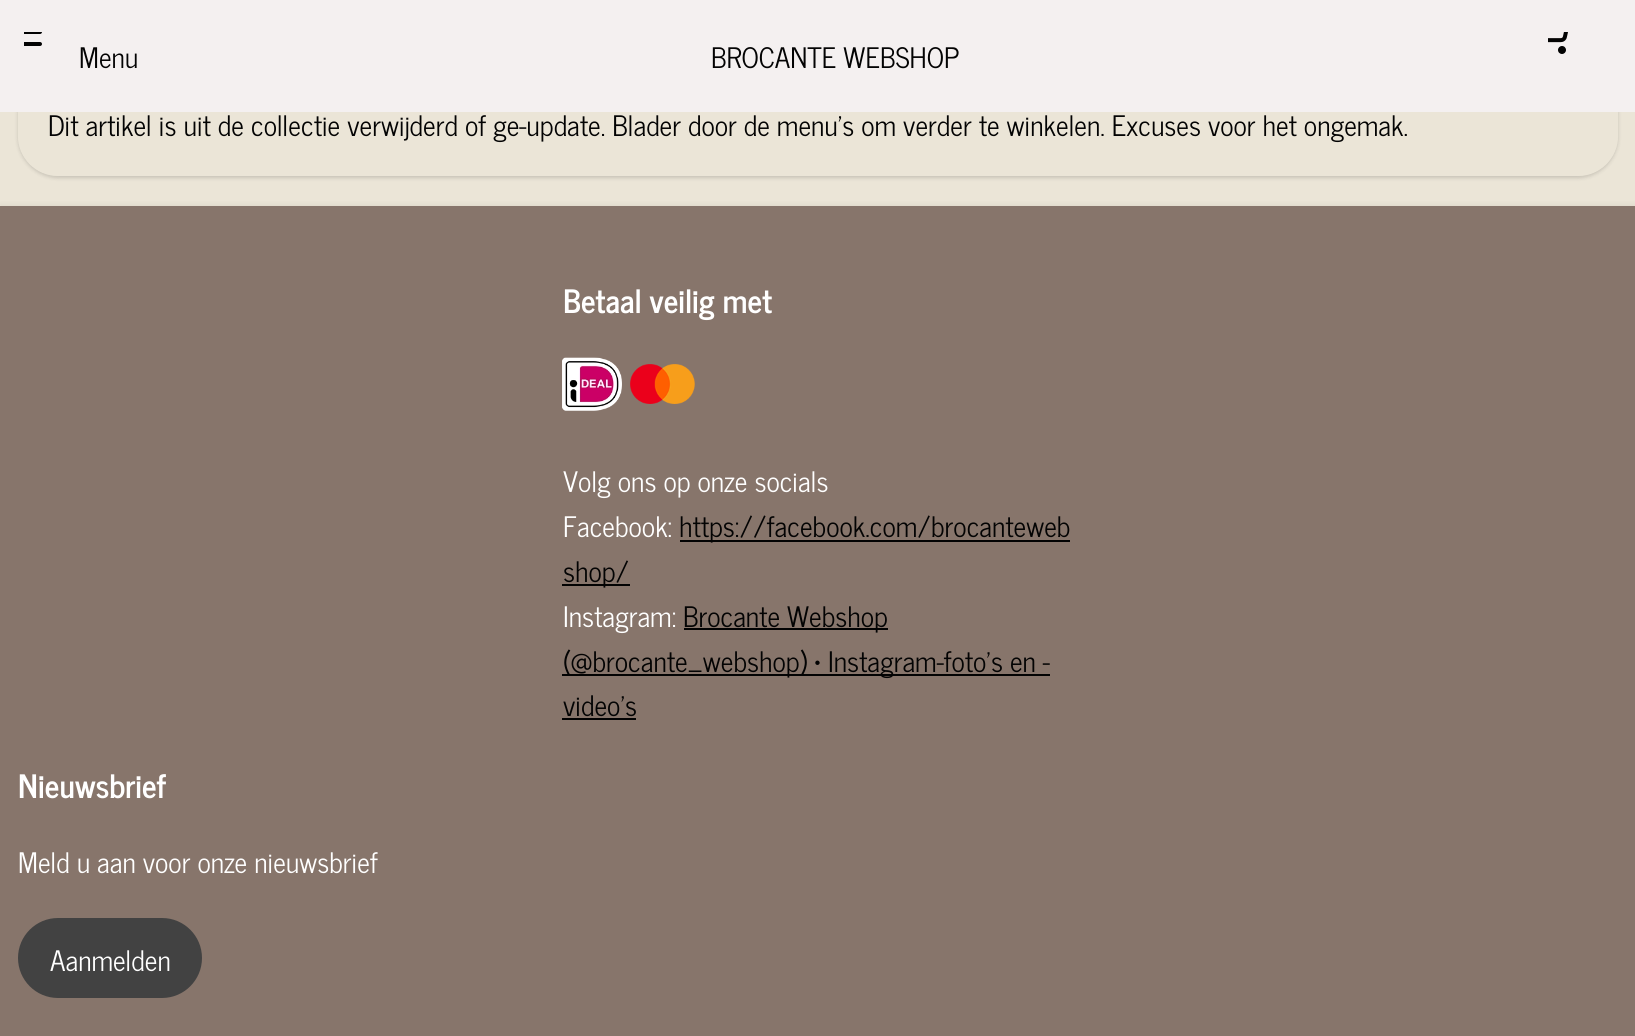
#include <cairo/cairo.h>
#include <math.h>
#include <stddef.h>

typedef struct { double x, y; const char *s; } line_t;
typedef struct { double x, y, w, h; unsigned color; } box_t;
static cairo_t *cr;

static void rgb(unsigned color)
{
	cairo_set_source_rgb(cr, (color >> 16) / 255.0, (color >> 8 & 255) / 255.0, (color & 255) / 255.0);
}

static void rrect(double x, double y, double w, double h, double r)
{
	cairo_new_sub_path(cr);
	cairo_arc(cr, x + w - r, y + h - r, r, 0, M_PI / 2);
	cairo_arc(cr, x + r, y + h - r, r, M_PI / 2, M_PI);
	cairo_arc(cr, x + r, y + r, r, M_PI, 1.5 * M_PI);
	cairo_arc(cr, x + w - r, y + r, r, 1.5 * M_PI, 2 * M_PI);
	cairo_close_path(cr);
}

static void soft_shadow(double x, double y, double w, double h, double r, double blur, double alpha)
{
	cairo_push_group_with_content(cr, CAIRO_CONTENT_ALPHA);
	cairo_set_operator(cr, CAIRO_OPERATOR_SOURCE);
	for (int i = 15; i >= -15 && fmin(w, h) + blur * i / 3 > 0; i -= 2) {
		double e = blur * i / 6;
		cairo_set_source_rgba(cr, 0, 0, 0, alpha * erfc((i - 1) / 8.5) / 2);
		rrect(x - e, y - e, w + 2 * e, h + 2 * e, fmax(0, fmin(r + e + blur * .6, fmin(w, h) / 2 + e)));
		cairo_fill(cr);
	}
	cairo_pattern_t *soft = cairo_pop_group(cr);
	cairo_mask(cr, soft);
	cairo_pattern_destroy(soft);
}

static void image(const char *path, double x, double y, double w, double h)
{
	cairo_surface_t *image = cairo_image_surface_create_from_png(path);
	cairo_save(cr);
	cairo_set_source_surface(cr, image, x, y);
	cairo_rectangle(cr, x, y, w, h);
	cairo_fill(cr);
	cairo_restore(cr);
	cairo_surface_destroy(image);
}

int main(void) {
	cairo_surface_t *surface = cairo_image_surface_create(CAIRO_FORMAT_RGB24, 1635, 1036);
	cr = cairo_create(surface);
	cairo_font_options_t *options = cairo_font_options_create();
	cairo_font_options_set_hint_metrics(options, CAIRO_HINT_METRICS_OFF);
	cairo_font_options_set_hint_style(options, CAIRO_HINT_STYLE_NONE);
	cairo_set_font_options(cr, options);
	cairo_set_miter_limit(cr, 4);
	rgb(0xebe5d7);
	cairo_paint(cr);
	cairo_save(cr);
	cairo_set_fill_rule(cr, CAIRO_FILL_RULE_EVEN_ODD);
	cairo_new_path(cr);
	cairo_move_to(cr, 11, 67);
	cairo_line_to(cr, 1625, 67);
	cairo_line_to(cr, 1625, 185);
	cairo_line_to(cr, 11, 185);
	cairo_close_path(cr);
	cairo_move_to(cr, 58, 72);
	cairo_line_to(cr, 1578, 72);
	cairo_curve_to(cr, 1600, 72, 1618, 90, 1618, 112);
	cairo_line_to(cr, 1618, 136);
	cairo_curve_to(cr, 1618, 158, 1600, 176, 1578, 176);
	cairo_line_to(cr, 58, 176);
	cairo_curve_to(cr, 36, 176, 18, 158, 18, 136);
	cairo_line_to(cr, 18, 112);
	cairo_curve_to(cr, 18, 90, 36, 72, 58, 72);
	cairo_close_path(cr);
	cairo_clip(cr);
	rgb(0x000000);
	soft_shadow(18, 74, 1600, 104, 40, 2, 0.15);
	cairo_restore(cr);
	rgb(0xf4f0f0);
	cairo_rectangle(cr, 0, 0, 1635, 112);
	cairo_fill(cr);
	image("img/1.png", 1548, 32, 20, 22);
	image("img/2.png", 24, 32, 18, 14);
	rgb(0x000000);
	soft_shadow(0, 204, 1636, 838, 0, 2, 0.05);
	rgb(0x87756b);
	cairo_rectangle(cr, 0, 206, 1635, 830);
	cairo_fill(cr);
	image("img/3.png", 562, 357, 60, 54);
	image("img/4.png", 630, 364, 65, 40);
	{
		static const box_t items[] = {
			{680, 540, 390, 2, 0x030303},
			{562, 584, 68, 2, 0x030303},
			{684, 628, 204, 2, 0x030303},
			{562, 674, 488, 2, 0x030303},
			{562, 718, 74, 2, 0x030303},
		};
		for (size_t i = 0; i < sizeof items / sizeof *items; i++) {
			rgb(items[i].color);
			cairo_rectangle(cr, items[i].x, items[i].y, items[i].w, items[i].h);
			cairo_fill(cr);
		}
	}
	rgb(0x424242);
	rrect(18, 918, 184, 80, 40);
	cairo_fill(cr);
	cairo_select_font_face(cr, "News Cycle", CAIRO_FONT_SLANT_NORMAL, CAIRO_FONT_WEIGHT_NORMAL);
	cairo_set_font_size(cr, 28);
	rgb(0x030303);
	{
		static const line_t items[] = {
			{79, 68, "Menu"},
			{711, 68, "BROCANTE WEBSHOP"},
			{48, 136, "Dit artikel is uit de collectie verwijderd of ge-update. Blader door de menu's om verder te winkelen. Excuses voor het ongemak."},
		};
		for (size_t i = 0; i < sizeof items / sizeof *items; i++) {
			cairo_move_to(cr, items[i].x, items[i].y);
			cairo_show_text(cr, items[i].s);
		}
	}
	cairo_select_font_face(cr, "News Cycle", CAIRO_FONT_SLANT_NORMAL, CAIRO_FONT_WEIGHT_BOLD);
	cairo_set_font_size(cr, 32);
	rgb(0xffffff);
	cairo_move_to(cr, 563, 313);
	cairo_show_text(cr, "Betaal veilig met");
	cairo_select_font_face(cr, "News Cycle", CAIRO_FONT_SLANT_NORMAL, CAIRO_FONT_WEIGHT_NORMAL);
	cairo_set_font_size(cr, 28);
	cairo_move_to(cr, 563, 492);
	cairo_show_text(cr, "Volg ons op onze socials");
	cairo_move_to(cr, 563, 537);
	cairo_show_text(cr, "Facebook:");
	rgb(0x030303);
	cairo_move_to(cr, 679, 537);
	cairo_show_text(cr, "https://facebook.com/brocanteweb");
	cairo_move_to(cr, 563, 582);
	cairo_show_text(cr, "shop/");
	rgb(0xffffff);
	cairo_move_to(cr, 563, 627);
	cairo_show_text(cr, "Instagram:");
	rgb(0x030303);
	{
		static const line_t items[] = {
			{683, 627, "Brocante Webshop"},
			{563, 672, "(@brocante_webshop) • Instagram-foto's en -"},
			{563, 716, "video's"},
		};
		for (size_t i = 0; i < sizeof items / sizeof *items; i++) {
			cairo_move_to(cr, items[i].x, items[i].y);
			cairo_show_text(cr, items[i].s);
		}
	}
	cairo_select_font_face(cr, "News Cycle", CAIRO_FONT_SLANT_NORMAL, CAIRO_FONT_WEIGHT_BOLD);
	cairo_set_font_size(cr, 32);
	rgb(0xffffff);
	cairo_move_to(cr, 18, 798);
	cairo_show_text(cr, "Nieuwsbrief");
	cairo_select_font_face(cr, "News Cycle", CAIRO_FONT_SLANT_NORMAL, CAIRO_FONT_WEIGHT_NORMAL);
	cairo_set_font_size(cr, 28);
	cairo_move_to(cr, 18, 873);
	cairo_show_text(cr, "Meld u aan voor onze nieuwsbrief");
	cairo_move_to(cr, 50, 971);
	cairo_show_text(cr, "Aanmelden");
	cairo_surface_write_to_png(surface, "page.png");
	cairo_font_options_destroy(options);
	cairo_destroy(cr);
	cairo_surface_destroy(surface);
	return 0;
}
